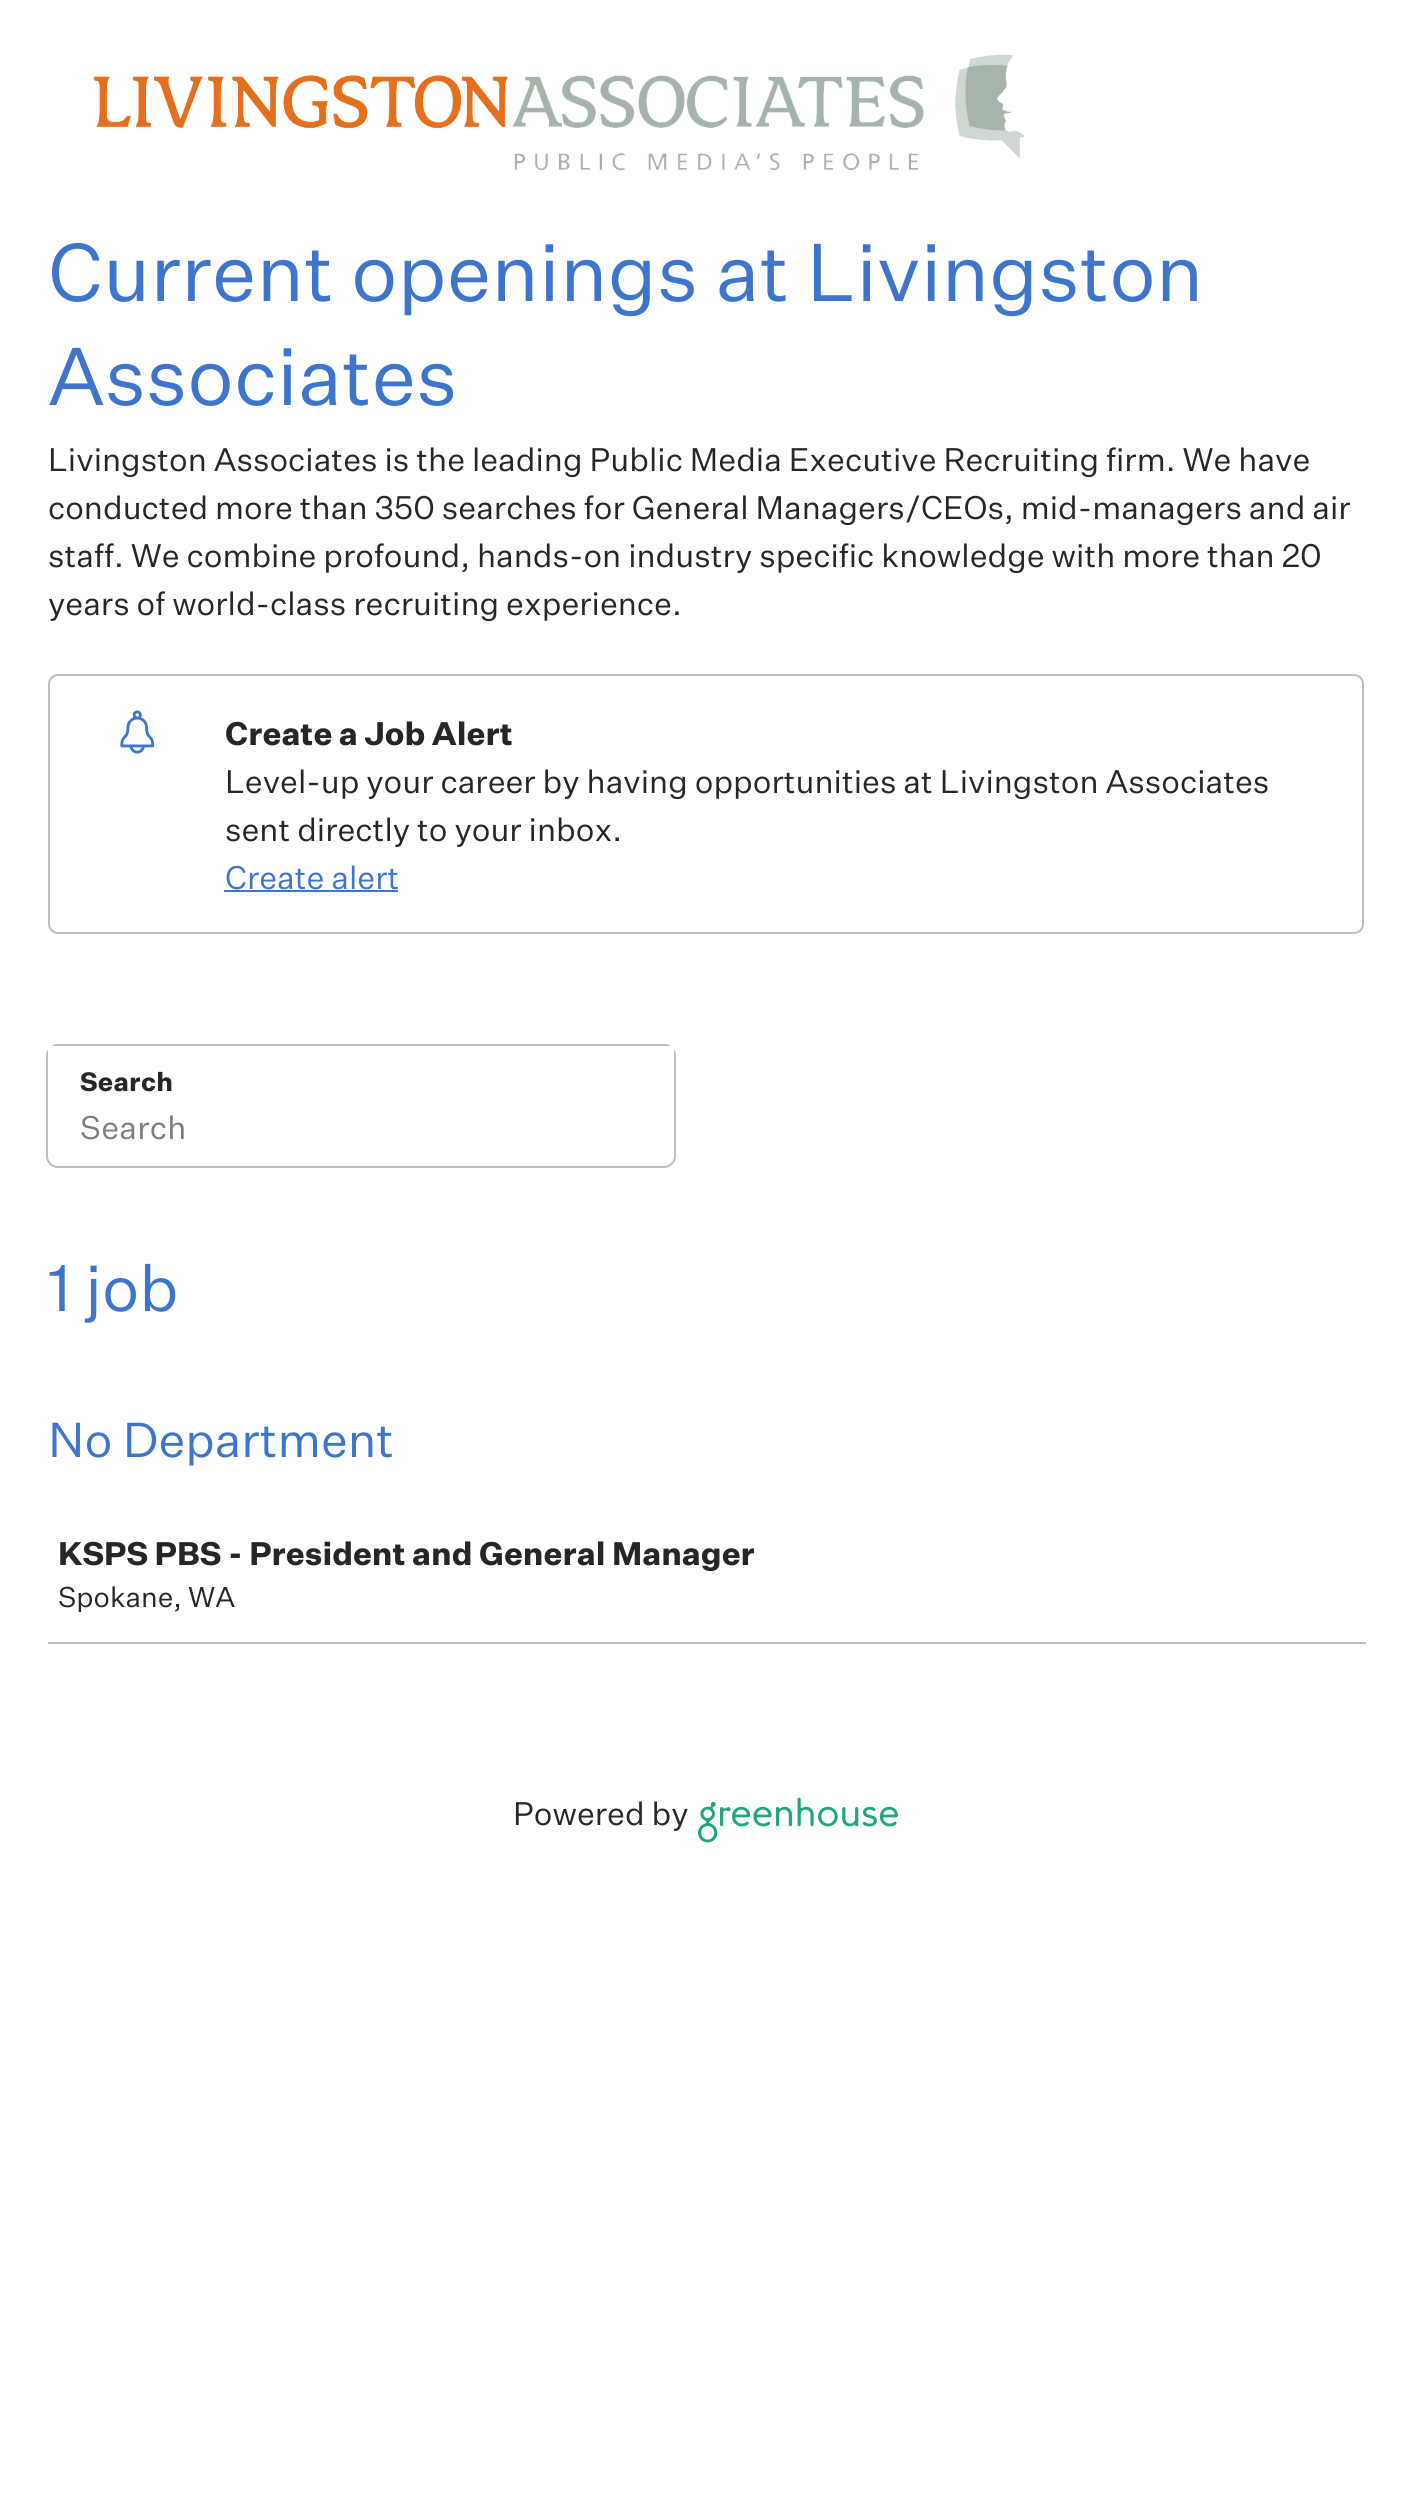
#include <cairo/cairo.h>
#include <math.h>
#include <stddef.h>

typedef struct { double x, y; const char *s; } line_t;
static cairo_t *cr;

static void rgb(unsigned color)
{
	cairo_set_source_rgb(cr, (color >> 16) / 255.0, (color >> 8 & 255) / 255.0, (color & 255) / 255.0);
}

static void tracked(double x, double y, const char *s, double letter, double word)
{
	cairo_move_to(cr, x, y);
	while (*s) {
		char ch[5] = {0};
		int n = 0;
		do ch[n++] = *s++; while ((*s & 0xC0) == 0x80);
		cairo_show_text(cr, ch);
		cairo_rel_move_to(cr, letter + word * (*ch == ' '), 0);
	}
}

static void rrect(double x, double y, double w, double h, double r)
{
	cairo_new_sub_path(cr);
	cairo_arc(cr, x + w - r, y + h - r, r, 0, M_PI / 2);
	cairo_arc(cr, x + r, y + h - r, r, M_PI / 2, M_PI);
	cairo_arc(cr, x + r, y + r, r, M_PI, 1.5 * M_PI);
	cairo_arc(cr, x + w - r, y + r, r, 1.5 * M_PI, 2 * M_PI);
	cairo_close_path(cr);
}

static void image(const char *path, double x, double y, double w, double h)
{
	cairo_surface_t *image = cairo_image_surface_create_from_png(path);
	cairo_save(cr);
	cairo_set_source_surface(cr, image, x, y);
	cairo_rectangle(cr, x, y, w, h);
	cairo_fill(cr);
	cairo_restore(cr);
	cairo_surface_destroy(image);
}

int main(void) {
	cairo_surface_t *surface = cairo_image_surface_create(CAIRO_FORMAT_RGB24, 1411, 2503);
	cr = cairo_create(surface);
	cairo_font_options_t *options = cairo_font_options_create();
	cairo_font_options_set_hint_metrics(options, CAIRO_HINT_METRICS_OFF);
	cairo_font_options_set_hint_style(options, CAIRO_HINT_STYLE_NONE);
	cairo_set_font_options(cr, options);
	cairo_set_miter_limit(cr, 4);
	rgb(0xffffff);
	cairo_paint(cr);
	image("img/1.png", 93, 54, 933, 117);
	rrect(49, 675, 1314, 258, 9);
	rgb(0xbebebe);
	cairo_stroke(cr);
	image("img/2.png", 120, 710, 35, 44);
	rgb(0x3d74cc);
	cairo_rectangle(cr, 224, 890, 174, 2);
	cairo_fill(cr);
	rrect(47, 1045, 628, 122, 11);
	rgb(0xbebebe);
	cairo_stroke(cr);
	rgb(0xffffff);
	cairo_rectangle(cr, 48, 1046, 626, 10);
	cairo_fill(cr);
	rgb(0xbebebe);
	cairo_rectangle(cr, 48, 1642, 1318, 2);
	cairo_fill(cr);
	image("img/3.png", 698, 1797, 200, 46);
	cairo_select_font_face(cr, "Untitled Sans", CAIRO_FONT_SLANT_NORMAL, CAIRO_FONT_WEIGHT_NORMAL);
	cairo_set_font_size(cr, 80);
	rgb(0x3d74cc);
	cairo_move_to(cr, 48, 301);
	cairo_show_text(cr, "Current openings at Livingston");
	cairo_move_to(cr, 48, 405);
	cairo_show_text(cr, "Associates");
	cairo_set_font_size(cr, 32);
	rgb(0x262626);
	{
		static const line_t items[] = {
			{48, 471, "Livingston Associates is the leading Public Media Executive Recruiting firm. We have"},
			{48, 519, "conducted more than 350 searches for General Managers/CEOs, mid-managers and air"},
			{48, 567, "staff. We combine profound, hands-on industry specific knowledge with more than 20"},
			{48, 615, "years of world-class recruiting experience."},
		};
		for (size_t i = 0; i < sizeof items / sizeof *items; i++) {
			cairo_move_to(cr, items[i].x, items[i].y);
			cairo_show_text(cr, items[i].s);
		}
	}
	cairo_select_font_face(cr, "Untitled Sans", CAIRO_FONT_SLANT_NORMAL, CAIRO_FONT_WEIGHT_BOLD);
	cairo_move_to(cr, 225, 745);
	cairo_show_text(cr, "Create a Job Alert");
	cairo_select_font_face(cr, "Untitled Sans", CAIRO_FONT_SLANT_NORMAL, CAIRO_FONT_WEIGHT_NORMAL);
	cairo_move_to(cr, 225, 793);
	cairo_show_text(cr, "Level-up your career by having opportunities at Livingston Associates");
	cairo_move_to(cr, 225, 841);
	cairo_show_text(cr, "sent directly to your inbox.");
	rgb(0x3d74cc);
	cairo_move_to(cr, 225, 889);
	cairo_show_text(cr, "Create alert");
	cairo_select_font_face(cr, "Untitled Sans", CAIRO_FONT_SLANT_NORMAL, CAIRO_FONT_WEIGHT_BOLD);
	cairo_set_font_size(cr, 26);
	rgb(0x262626);
	tracked(80, 1091, "Search", 0.25, 0);
	cairo_select_font_face(cr, "Untitled Sans", CAIRO_FONT_SLANT_NORMAL, CAIRO_FONT_WEIGHT_NORMAL);
	cairo_set_font_size(cr, 32);
	rgb(0x7d7d7d);
	tracked(80, 1139, "Search", 0.25, 0);
	cairo_set_font_size(cr, 64);
	rgb(0x3d74cc);
	cairo_move_to(cr, 48, 1311);
	cairo_show_text(cr, "1 job");
	cairo_set_font_size(cr, 48);
	cairo_move_to(cr, 48, 1457);
	cairo_show_text(cr, "No Department");
	cairo_select_font_face(cr, "Untitled Sans", CAIRO_FONT_SLANT_NORMAL, CAIRO_FONT_WEIGHT_BOLD);
	cairo_set_font_size(cr, 32);
	rgb(0x262626);
	cairo_move_to(cr, 58, 1565);
	cairo_show_text(cr, "KSPS PBS - President and General Manager");
	cairo_select_font_face(cr, "Untitled Sans", CAIRO_FONT_SLANT_NORMAL, CAIRO_FONT_WEIGHT_NORMAL);
	cairo_set_font_size(cr, 28);
	cairo_move_to(cr, 58, 1607);
	cairo_show_text(cr, "Spokane, WA");
	cairo_set_font_size(cr, 32);
	cairo_move_to(cr, 513, 1825);
	cairo_show_text(cr, "Powered by");
	cairo_surface_write_to_png(surface, "page.png");
	cairo_font_options_destroy(options);
	cairo_destroy(cr);
	cairo_surface_destroy(surface);
	return 0;
}
